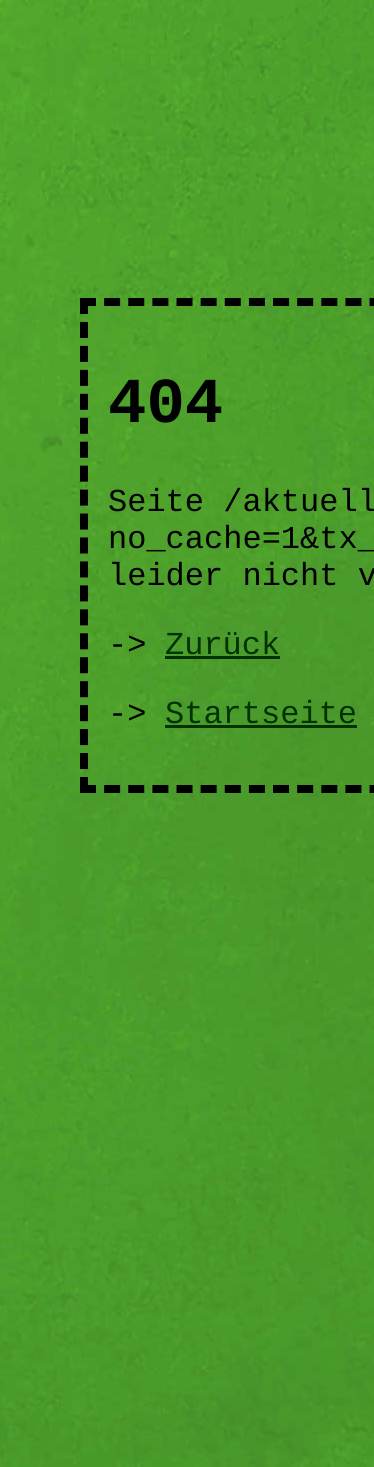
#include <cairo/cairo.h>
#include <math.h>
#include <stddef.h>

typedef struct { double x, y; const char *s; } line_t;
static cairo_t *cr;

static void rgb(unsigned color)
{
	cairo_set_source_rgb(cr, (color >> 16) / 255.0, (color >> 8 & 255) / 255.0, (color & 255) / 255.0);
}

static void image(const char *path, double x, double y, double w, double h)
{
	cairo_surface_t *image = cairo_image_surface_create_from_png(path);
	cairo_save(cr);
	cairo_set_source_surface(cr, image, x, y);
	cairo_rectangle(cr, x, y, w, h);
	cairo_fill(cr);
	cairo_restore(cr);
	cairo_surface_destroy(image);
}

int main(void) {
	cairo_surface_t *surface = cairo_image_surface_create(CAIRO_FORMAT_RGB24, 374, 1467);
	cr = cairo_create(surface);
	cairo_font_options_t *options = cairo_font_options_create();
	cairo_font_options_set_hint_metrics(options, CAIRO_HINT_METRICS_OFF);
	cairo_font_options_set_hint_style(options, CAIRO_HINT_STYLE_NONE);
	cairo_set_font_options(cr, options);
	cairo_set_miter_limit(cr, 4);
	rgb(0xffffff);
	cairo_paint(cr);
	image("img/1.png", 0, 0, 374, 1467);
	cairo_new_path(cr);
	cairo_move_to(cr, 80, 302);
	cairo_line_to(cr, 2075, 302);
	rgb(0x000000);
	cairo_set_line_width(cr, 8);
	cairo_set_dash(cr, (double[]){16, 8.13}, 2, 0);
	cairo_stroke(cr);
	cairo_new_path(cr);
	cairo_move_to(cr, 80, 789);
	cairo_line_to(cr, 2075, 789);
	cairo_stroke(cr);
	cairo_new_path(cr);
	cairo_move_to(cr, 84, 298);
	cairo_line_to(cr, 84, 793);
	cairo_set_dash(cr, (double[]){16, 7.95}, 2, 0);
	cairo_stroke(cr);
	rgb(0x003300);
	cairo_rectangle(cr, 165, 656, 115, 3);
	cairo_fill(cr);
	cairo_rectangle(cr, 165, 725, 192, 3);
	cairo_fill(cr);
	cairo_select_font_face(cr, "Liberation Mono", CAIRO_FONT_SLANT_NORMAL, CAIRO_FONT_WEIGHT_BOLD);
	cairo_set_font_size(cr, 64);
	rgb(0x000000);
	cairo_move_to(cr, 108, 422);
	cairo_show_text(cr, "404");
	cairo_select_font_face(cr, "Liberation Mono", CAIRO_FONT_SLANT_NORMAL, CAIRO_FONT_WEIGHT_NORMAL);
	cairo_set_font_size(cr, 32);
	{
		static const line_t items[] = {
			{108, 511, "Seite /aktuell"},
			{108, 548, "no_cache=1&tx_"},
			{108, 585, "leider nicht v"},
			{108, 654, "->"},
		};
		for (size_t i = 0; i < sizeof items / sizeof *items; i++) {
			cairo_move_to(cr, items[i].x, items[i].y);
			cairo_show_text(cr, items[i].s);
		}
	}
	rgb(0x003300);
	cairo_move_to(cr, 165, 654);
	cairo_show_text(cr, "Zurück");
	rgb(0x000000);
	cairo_move_to(cr, 108, 723);
	cairo_show_text(cr, "->");
	rgb(0x003300);
	cairo_move_to(cr, 165, 723);
	cairo_show_text(cr, "Startseite");
	cairo_surface_write_to_png(surface, "page.png");
	cairo_font_options_destroy(options);
	cairo_destroy(cr);
	cairo_surface_destroy(surface);
	return 0;
}
